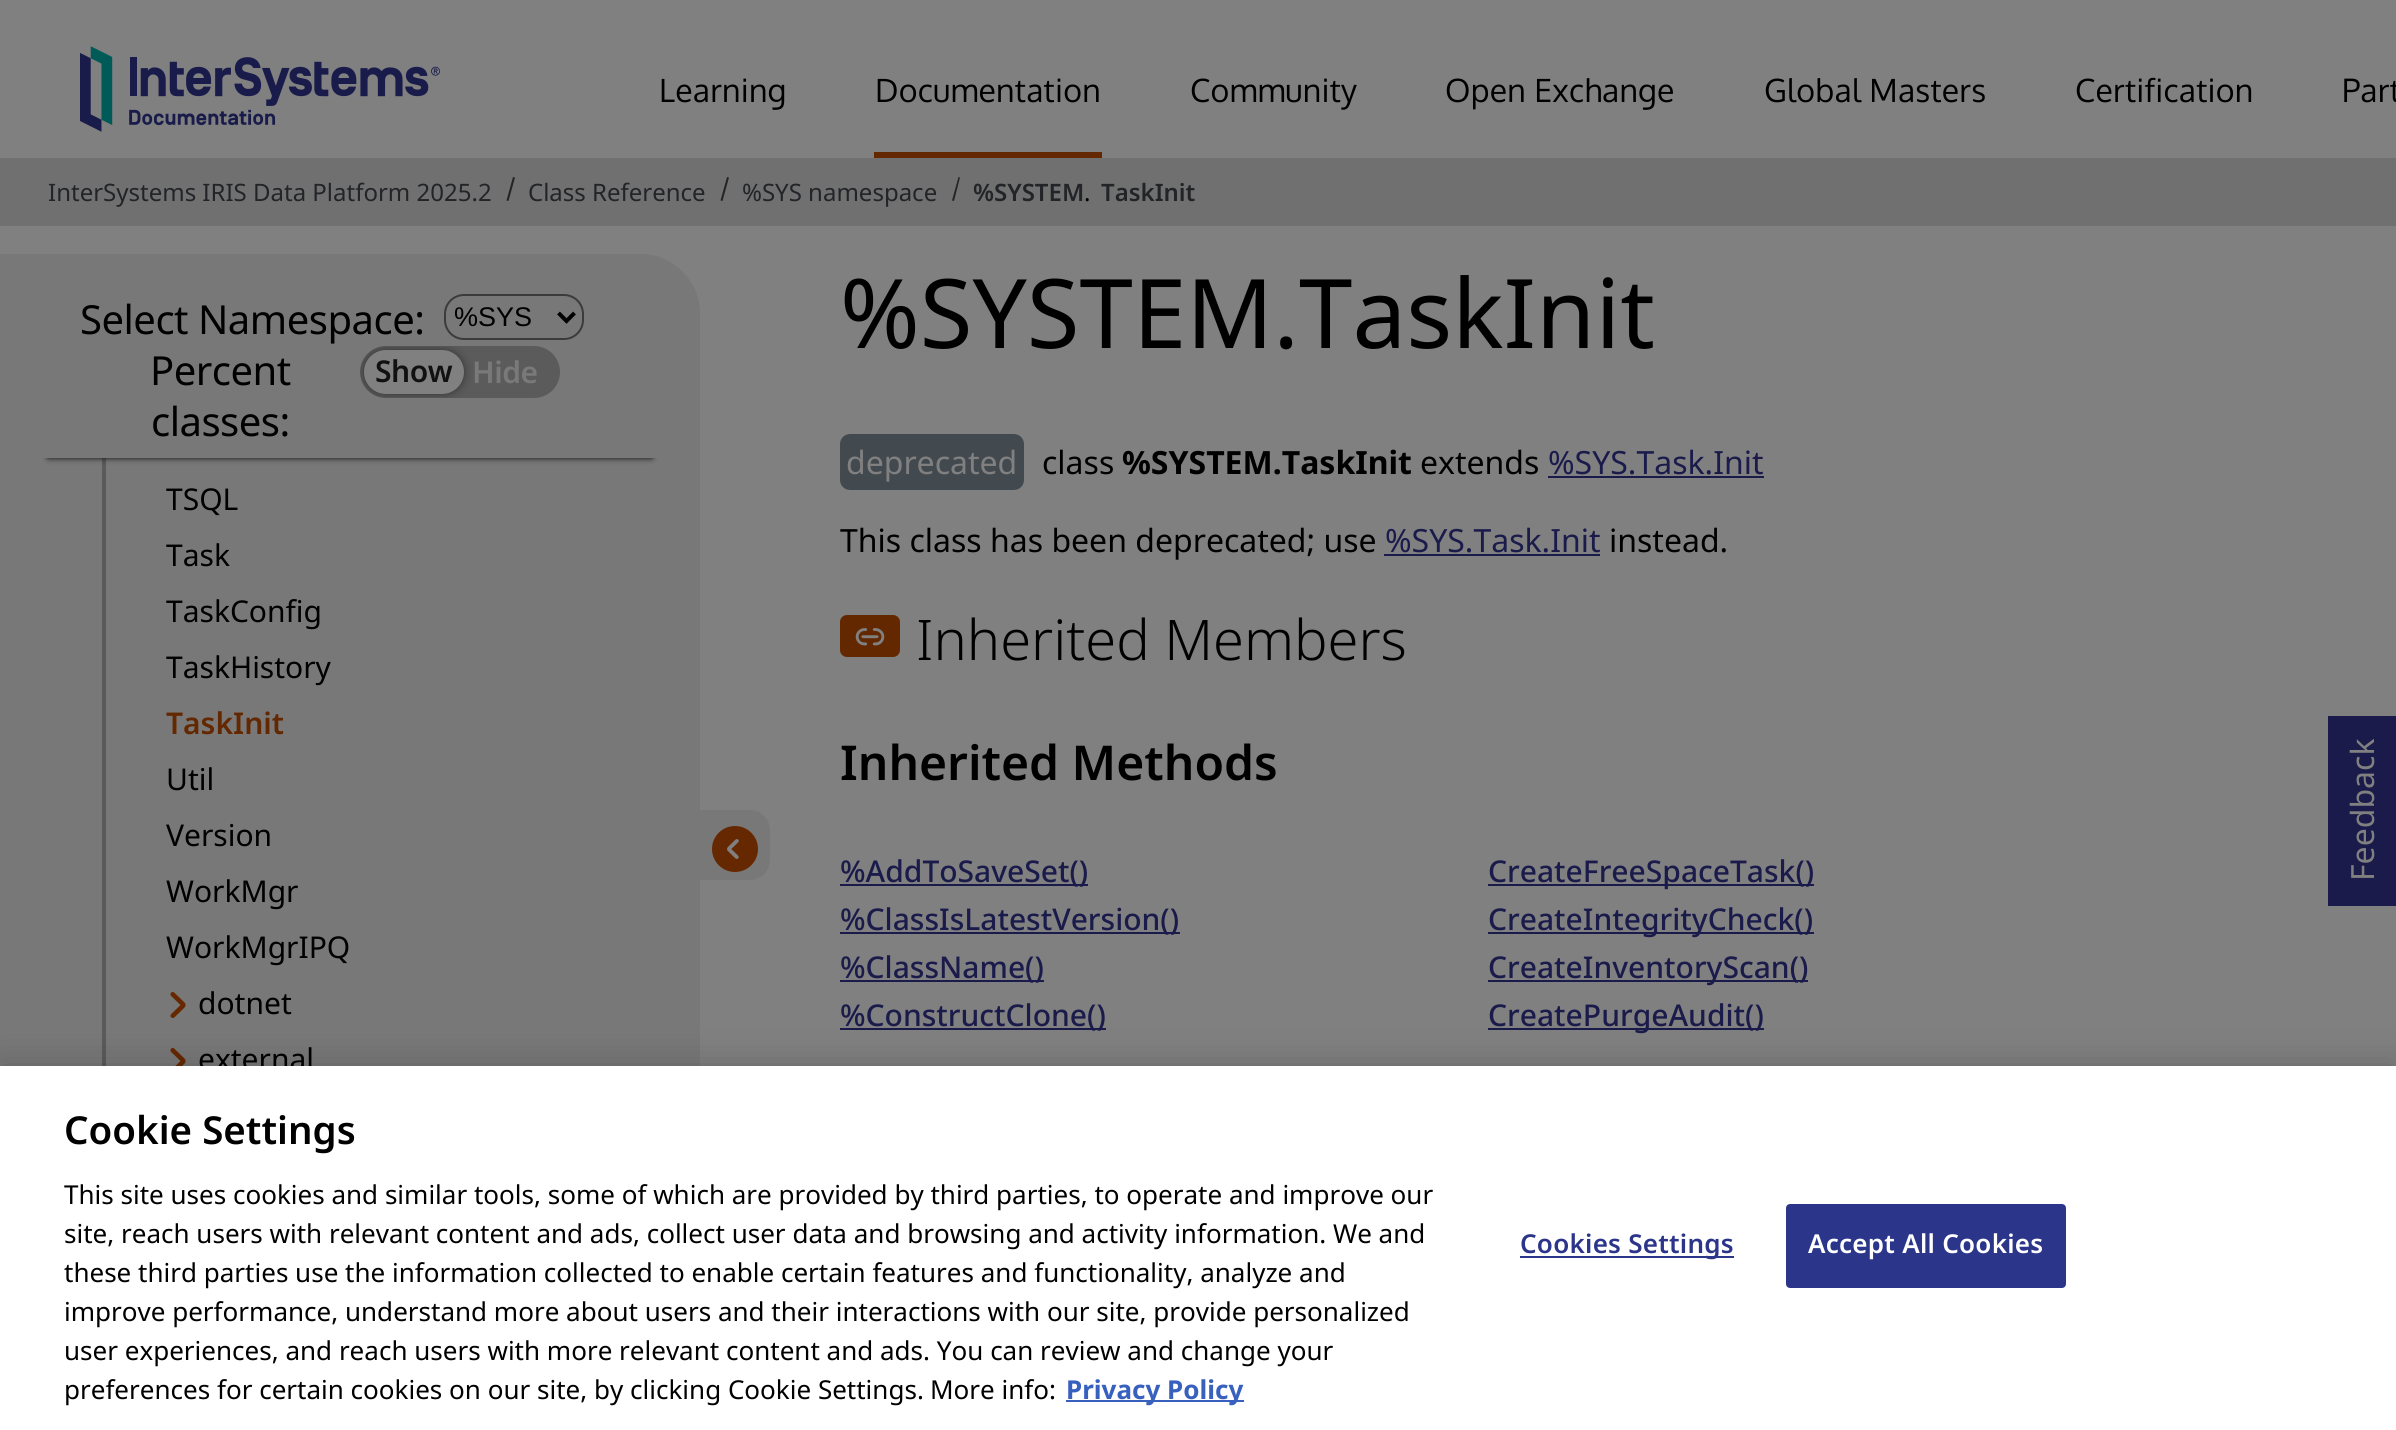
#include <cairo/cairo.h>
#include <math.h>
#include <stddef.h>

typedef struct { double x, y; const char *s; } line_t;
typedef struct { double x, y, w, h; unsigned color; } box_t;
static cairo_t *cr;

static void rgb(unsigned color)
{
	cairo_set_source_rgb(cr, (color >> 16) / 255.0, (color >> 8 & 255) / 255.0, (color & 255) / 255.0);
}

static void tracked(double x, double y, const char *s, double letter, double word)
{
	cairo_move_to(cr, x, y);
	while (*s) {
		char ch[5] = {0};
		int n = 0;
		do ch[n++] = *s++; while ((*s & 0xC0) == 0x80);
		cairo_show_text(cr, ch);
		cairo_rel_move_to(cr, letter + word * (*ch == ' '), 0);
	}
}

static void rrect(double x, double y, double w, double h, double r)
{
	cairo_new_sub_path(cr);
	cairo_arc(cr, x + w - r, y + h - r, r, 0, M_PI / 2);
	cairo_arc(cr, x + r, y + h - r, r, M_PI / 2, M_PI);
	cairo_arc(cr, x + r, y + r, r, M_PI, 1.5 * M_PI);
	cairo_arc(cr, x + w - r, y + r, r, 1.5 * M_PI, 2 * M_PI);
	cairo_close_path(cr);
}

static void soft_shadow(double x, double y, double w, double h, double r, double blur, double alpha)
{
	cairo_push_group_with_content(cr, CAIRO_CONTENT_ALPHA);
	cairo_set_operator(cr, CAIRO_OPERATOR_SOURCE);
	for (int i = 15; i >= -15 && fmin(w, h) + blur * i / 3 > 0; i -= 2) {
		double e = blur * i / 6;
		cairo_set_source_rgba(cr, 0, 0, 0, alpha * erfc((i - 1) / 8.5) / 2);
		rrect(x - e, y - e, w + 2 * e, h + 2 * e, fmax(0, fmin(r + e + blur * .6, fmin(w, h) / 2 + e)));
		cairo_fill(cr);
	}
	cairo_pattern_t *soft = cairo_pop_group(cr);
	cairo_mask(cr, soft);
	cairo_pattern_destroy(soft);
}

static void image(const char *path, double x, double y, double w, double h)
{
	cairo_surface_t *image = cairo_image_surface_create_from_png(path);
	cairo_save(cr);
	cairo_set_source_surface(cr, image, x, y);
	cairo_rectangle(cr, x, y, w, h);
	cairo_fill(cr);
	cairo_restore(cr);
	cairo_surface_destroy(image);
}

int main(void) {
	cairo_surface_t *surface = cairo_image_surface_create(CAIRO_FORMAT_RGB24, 2396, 1430);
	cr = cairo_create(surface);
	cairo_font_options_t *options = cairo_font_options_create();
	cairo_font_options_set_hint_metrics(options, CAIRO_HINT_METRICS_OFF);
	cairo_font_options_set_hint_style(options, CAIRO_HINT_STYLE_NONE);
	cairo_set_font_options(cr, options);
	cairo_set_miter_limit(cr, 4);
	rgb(0x808080);
	cairo_paint(cr);
	image("img/1.png", 80, 46, 360, 86);
	rgb(0x642800);
	cairo_rectangle(cr, 874, 152, 228, 6);
	cairo_fill(cr);
	rgb(0x707070);
	cairo_rectangle(cr, 0, 158, 2396, 68);
	cairo_fill(cr);
	rgb(0x222426);
	cairo_new_path(cr);
	cairo_move_to(cr, 513, 177);
	cairo_line_to(cr, 515, 177.5);
	cairo_line_to(cr, 508.5, 201);
	cairo_line_to(cr, 506.5, 200.5);
	cairo_close_path(cr);
	cairo_fill(cr);
	cairo_new_path(cr);
	cairo_move_to(cr, 727, 177);
	cairo_line_to(cr, 729, 177.5);
	cairo_line_to(cr, 722.5, 201);
	cairo_line_to(cr, 720.5, 200.5);
	cairo_close_path(cr);
	cairo_fill(cr);
	cairo_new_path(cr);
	cairo_move_to(cr, 958.5, 177);
	cairo_line_to(cr, 960, 177.5);
	cairo_line_to(cr, 954, 201);
	cairo_line_to(cr, 952, 200.5);
	cairo_close_path(cr);
	cairo_fill(cr);
	rgb(0x787879);
	cairo_new_path(cr);
	cairo_move_to(cr, 0, 254);
	cairo_line_to(cr, 640, 254);
	cairo_curve_to(cr, 673, 254, 700, 281, 700, 314);
	cairo_line_to(cr, 700, 1430);
	cairo_line_to(cr, 0, 1430);
	cairo_close_path(cr);
	cairo_fill(cr);
	rgb(0x5a5a5a);
	cairo_rectangle(cr, 102, 458, 4, 608);
	cairo_fill(cr);
	rgb(0x0b0b0b);
	soft_shadow(48, 350, 604, 108, 0, 3, 1);
	rgb(0x787879);
	cairo_new_path(cr);
	cairo_move_to(cr, 0, 254);
	cairo_line_to(cr, 640, 254);
	cairo_curve_to(cr, 673, 254, 700, 281, 700, 314);
	cairo_line_to(cr, 700, 458);
	cairo_line_to(cr, 0, 458);
	cairo_close_path(cr);
	cairo_fill(cr);
	rrect(445, 295, 138, 44, 19);
	rgb(0x3b3b3b);
	cairo_stroke(cr);
	cairo_new_path(cr);
	cairo_move_to(cr, 558.5, 313);
	cairo_line_to(cr, 566.5, 321);
	cairo_line_to(cr, 574.5, 313);
	rgb(0x000000);
	cairo_set_line_width(cr, 4);
	cairo_stroke(cr);
	rgb(0x5b5b5b);
	rrect(360, 346, 200, 52, 26);
	cairo_fill(cr);
	cairo_save(cr);
	rrect(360, 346, 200, 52, 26);
	cairo_clip(cr);
	rgb(0x090909);
	soft_shadow(368, 354, 92, 36, 18, 6, 1);
	cairo_restore(cr);
	rgb(0x808080);
	rrect(364, 350, 100, 44, 22);
	cairo_fill(cr);
	image("img/2.png", 170, 992, 16, 26);
	image("img/3.png", 170, 1048, 16, 18);
	rgb(0x787878);
	cairo_new_path(cr);
	cairo_move_to(cr, 700, 810);
	cairo_line_to(cr, 750, 810);
	cairo_curve_to(cr, 761, 810, 770, 819, 770, 830);
	cairo_line_to(cr, 770, 860);
	cairo_curve_to(cr, 770, 871, 761, 880, 750, 880);
	cairo_line_to(cr, 700, 880);
	cairo_close_path(cr);
	cairo_fill(cr);
	image("img/4.png", 712, 826, 46, 46);
	rgb(0x434a4f);
	rrect(841, 435, 182, 54, 9);
	cairo_fill_preserve(cr);
	cairo_set_line_width(cr, 2);
	cairo_stroke(cr);
	rgb(0x1a1b4b);
	cairo_rectangle(cr, 1548, 476, 216, 2);
	cairo_fill(cr);
	cairo_rectangle(cr, 1384, 554, 216, 2);
	cairo_fill(cr);
	image("img/5.png", 840, 615, 60, 42);
	{
		static const box_t items[] = {
			{840, 884, 248, 2, 0x1a1b4b},
			{1488, 884, 326, 2, 0x1a1b4b},
			{840, 932, 340, 2, 0x1a1b4b},
			{1488, 932, 326, 2, 0x1a1b4b},
			{840, 980, 204, 2, 0x1a1b4b},
			{1488, 980, 320, 2, 0x1a1b4b},
			{840, 1028, 266, 2, 0x1a1b4b},
			{1488, 1028, 276, 2, 0x1a1b4b},
			{2328, 716, 68, 190, 0x1a1b4b},
		};
		for (size_t i = 0; i < sizeof items / sizeof *items; i++) {
			rgb(items[i].color);
			cairo_rectangle(cr, items[i].x, items[i].y, items[i].w, items[i].h);
			cairo_fill(cr);
		}
	}
	rgb(0x000000);
	soft_shadow(0, 1066, 2396, 364, 0, 18, 0.2);
	cairo_select_font_face(cr, "Oxygen", CAIRO_FONT_SLANT_NORMAL, CAIRO_FONT_WEIGHT_NORMAL);
	cairo_set_font_size(cr, 32);
	rgb(0x000000);
	{
		static const line_t items[] = {
			{659, 102, "Learning"},
			{875, 102, "Documentation"},
			{1190, 102, "Community"},
			{1445, 102, "Open Exchange"},
			{1764, 102, "Global Masters"},
			{2075, 102, "Certification"},
			{2342, 102, "Part"},
		};
		for (size_t i = 0; i < sizeof items / sizeof *items; i++) {
			tracked(items[i].x, items[i].y, items[i].s, 0.25, 0);
		}
	}
	cairo_select_font_face(cr, "Noto Sans", CAIRO_FONT_SLANT_NORMAL, CAIRO_FONT_WEIGHT_NORMAL);
	cairo_set_font_size(cr, 24);
	rgb(0x222427);
	{
		static const line_t items[] = {
			{48, 201, "InterSystems IRIS Data Platform 2025.2"},
			{528, 201, "Class Reference"},
			{742, 201, "%SYS namespace"},
		};
		for (size_t i = 0; i < sizeof items / sizeof *items; i++) {
			cairo_move_to(cr, items[i].x, items[i].y);
			cairo_show_text(cr, items[i].s);
		}
	}
	cairo_select_font_face(cr, "Noto Sans SemiBold", CAIRO_FONT_SLANT_NORMAL, CAIRO_FONT_WEIGHT_NORMAL);
	cairo_move_to(cr, 973, 201);
	cairo_show_text(cr, "%SYSTEM");
	cairo_select_font_face(cr, "Noto Sans", CAIRO_FONT_SLANT_NORMAL, CAIRO_FONT_WEIGHT_NORMAL);
	rgb(0x000000);
	cairo_move_to(cr, 1084, 201);
	cairo_show_text(cr, ".");
	cairo_select_font_face(cr, "Noto Sans SemiBold", CAIRO_FONT_SLANT_NORMAL, CAIRO_FONT_WEIGHT_NORMAL);
	rgb(0x222427);
	cairo_move_to(cr, 1101, 201);
	cairo_show_text(cr, "TaskInit");
	cairo_select_font_face(cr, "Noto Sans", CAIRO_FONT_SLANT_NORMAL, CAIRO_FONT_WEIGHT_NORMAL);
	cairo_set_font_size(cr, 40);
	rgb(0x000000);
	tracked(80, 334, "Select Namespace:", -0.5, 0);
	cairo_select_font_face(cr, "Liberation Sans", CAIRO_FONT_SLANT_NORMAL, CAIRO_FONT_WEIGHT_NORMAL);
	cairo_set_font_size(cr, 27);
	cairo_move_to(cr, 454, 326);
	cairo_show_text(cr, "%SYS");
	cairo_select_font_face(cr, "Noto Sans", CAIRO_FONT_SLANT_NORMAL, CAIRO_FONT_WEIGHT_NORMAL);
	cairo_set_font_size(cr, 40);
	tracked(150, 385, "Percent", -0.5, 0);
	cairo_select_font_face(cr, "Noto Sans SemiBold", CAIRO_FONT_SLANT_NORMAL, CAIRO_FONT_WEIGHT_NORMAL);
	cairo_set_font_size(cr, 30);
	rgb(0x111111);
	tracked(375, 382, "Show", -0.5, 0);
	rgb(0x797979);
	tracked(472, 383, "Hide", -0.5, 0);
	cairo_select_font_face(cr, "Noto Sans", CAIRO_FONT_SLANT_NORMAL, CAIRO_FONT_WEIGHT_NORMAL);
	cairo_set_font_size(cr, 40);
	rgb(0x000000);
	tracked(151, 436, "classes:", -0.5, 0);
	cairo_set_font_size(cr, 30);
	{
		static const line_t items[] = {
			{166, 510, "TSQL"},
			{166, 566, "Task"},
			{166, 622, "TaskConfig"},
			{166, 678, "TaskHistory"},
		};
		for (size_t i = 0; i < sizeof items / sizeof *items; i++) {
			cairo_move_to(cr, items[i].x, items[i].y);
			cairo_show_text(cr, items[i].s);
		}
	}
	cairo_select_font_face(cr, "Noto Sans SemiBold", CAIRO_FONT_SLANT_NORMAL, CAIRO_FONT_WEIGHT_NORMAL);
	rgb(0x642800);
	cairo_move_to(cr, 166, 734);
	cairo_show_text(cr, "TaskInit");
	cairo_select_font_face(cr, "Noto Sans", CAIRO_FONT_SLANT_NORMAL, CAIRO_FONT_WEIGHT_NORMAL);
	rgb(0x000000);
	{
		static const line_t items[] = {
			{166, 790, "Util"},
			{166, 846, "Version"},
			{166, 902, "WorkMgr"},
			{166, 958, "WorkMgrIPQ"},
			{198, 1014, "dotnet"},
			{198, 1070, "external"},
		};
		for (size_t i = 0; i < sizeof items / sizeof *items; i++) {
			cairo_move_to(cr, items[i].x, items[i].y);
			cairo_show_text(cr, items[i].s);
		}
	}
	cairo_set_font_size(cr, 96);
	cairo_move_to(cr, 840, 348);
	cairo_show_text(cr, "%SYSTEM.TaskInit");
	cairo_set_font_size(cr, 32);
	rgb(0x808080);
	cairo_move_to(cr, 846, 474);
	cairo_show_text(cr, "deprecated");
	rgb(0x000000);
	cairo_move_to(cr, 1042, 474);
	cairo_show_text(cr, "class");
	cairo_select_font_face(cr, "Noto Sans", CAIRO_FONT_SLANT_NORMAL, CAIRO_FONT_WEIGHT_BOLD);
	cairo_move_to(cr, 1122, 474);
	cairo_show_text(cr, "%SYSTEM.TaskInit");
	cairo_select_font_face(cr, "Noto Sans", CAIRO_FONT_SLANT_NORMAL, CAIRO_FONT_WEIGHT_NORMAL);
	cairo_move_to(cr, 1420, 474);
	cairo_show_text(cr, "extends");
	rgb(0x1a1b4b);
	cairo_move_to(cr, 1548, 474);
	cairo_show_text(cr, "%SYS.Task.Init");
	rgb(0x000000);
	cairo_move_to(cr, 840, 552);
	cairo_show_text(cr, "This class has been deprecated; use");
	rgb(0x1a1b4b);
	cairo_move_to(cr, 1385, 552);
	cairo_show_text(cr, "%SYS.Task.Init");
	rgb(0x000000);
	cairo_move_to(cr, 1609, 552);
	cairo_show_text(cr, "instead.");
	cairo_select_font_face(cr, "Noto Sans Light", CAIRO_FONT_SLANT_NORMAL, CAIRO_FONT_WEIGHT_NORMAL);
	cairo_set_font_size(cr, 56);
	cairo_move_to(cr, 916, 660);
	cairo_show_text(cr, "Inherited Members");
	cairo_select_font_face(cr, "Noto Sans SemiBold", CAIRO_FONT_SLANT_NORMAL, CAIRO_FONT_WEIGHT_NORMAL);
	cairo_set_font_size(cr, 48);
	cairo_move_to(cr, 840, 780);
	cairo_show_text(cr, "Inherited Methods");
	cairo_select_font_face(cr, "Noto Sans Medium", CAIRO_FONT_SLANT_NORMAL, CAIRO_FONT_WEIGHT_NORMAL);
	cairo_set_font_size(cr, 30);
	rgb(0x1a1b4b);
	{
		static const line_t items[] = {
			{840, 882, "%AddToSaveSet()"},
			{1488, 882, "CreateFreeSpaceTask()"},
			{840, 930, "%ClassIsLatestVersion()"},
			{1488, 930, "CreateIntegrityCheck()"},
			{840, 978, "%ClassName()"},
			{1488, 978, "CreateInventoryScan()"},
			{840, 1026, "%ConstructClone()"},
			{1488, 1026, "CreatePurgeAudit()"},
		};
		for (size_t i = 0; i < sizeof items / sizeof *items; i++) {
			cairo_move_to(cr, items[i].x, items[i].y);
			cairo_show_text(cr, items[i].s);
		}
	}
	cairo_select_font_face(cr, "Noto Sans", CAIRO_FONT_SLANT_NORMAL, CAIRO_FONT_WEIGHT_NORMAL);
	cairo_set_font_size(cr, 32);
	rgb(0x808080);
	cairo_save(cr);
	cairo_translate(cr, 2374, 881);
	cairo_rotate(cr, -90 * M_PI / 180);
	cairo_move_to(cr, 0, 0);
	cairo_show_text(cr, "Feedback");
	cairo_restore(cr);
	rgb(0xffffff);
	cairo_rectangle(cr, 0, 1066, 2396, 364);
	cairo_fill(cr);
	cairo_select_font_face(cr, "Noto Sans SemiBold", CAIRO_FONT_SLANT_NORMAL, CAIRO_FONT_WEIGHT_NORMAL);
	cairo_set_font_size(cr, 38.5);
	rgb(0x000000);
	cairo_move_to(cr, 64, 1144);
	cairo_show_text(cr, "Cookie Settings");
	cairo_select_font_face(cr, "Noto Sans", CAIRO_FONT_SLANT_NORMAL, CAIRO_FONT_WEIGHT_NORMAL);
	cairo_set_font_size(cr, 26.02);
	{
		static const line_t items[] = {
			{64, 1204, "This site uses cookies and similar tools, some of which are provided by third parties, to operate and improve our"},
			{64, 1243, "site, reach users with relevant content and ads, collect user data and browsing and activity information. We and"},
			{64, 1282, "these third parties use the information collected to enable certain features and functionality, analyze and"},
			{64, 1321, "improve performance, understand more about users and their interactions with our site, provide personalized"},
			{64, 1360, "user experiences, and reach users with more relevant content and ads. You can review and change your"},
			{64, 1399, "preferences for certain cookies on our site, by clicking Cookie Settings."},
			{930, 1399, "More info:"},
		};
		for (size_t i = 0; i < sizeof items / sizeof *items; i++) {
			cairo_move_to(cr, items[i].x, items[i].y);
			cairo_show_text(cr, items[i].s);
		}
	}
	rgb(0x3860be);
	cairo_rectangle(cr, 1066, 1400, 178, 2);
	cairo_fill(cr);
	cairo_select_font_face(cr, "Noto Sans", CAIRO_FONT_SLANT_NORMAL, CAIRO_FONT_WEIGHT_BOLD);
	cairo_move_to(cr, 1066, 1399);
	cairo_show_text(cr, "Privacy Policy");
	rgb(0x2b3589);
	cairo_rectangle(cr, 1520, 1256, 214, 2);
	cairo_fill(cr);
	cairo_select_font_face(cr, "Noto Sans SemiBold", CAIRO_FONT_SLANT_NORMAL, CAIRO_FONT_WEIGHT_NORMAL);
	tracked(1520, 1253, "Cookies Settings", 0.25, 0);
	rrect(1787, 1205, 278, 82, 3);
	cairo_fill_preserve(cr);
	cairo_stroke(cr);
	rgb(0xffffff);
	tracked(1808, 1253, "Accept All Cookies", 0.25, 0);
	cairo_surface_write_to_png(surface, "page.png");
	cairo_font_options_destroy(options);
	cairo_destroy(cr);
	cairo_surface_destroy(surface);
	return 0;
}
